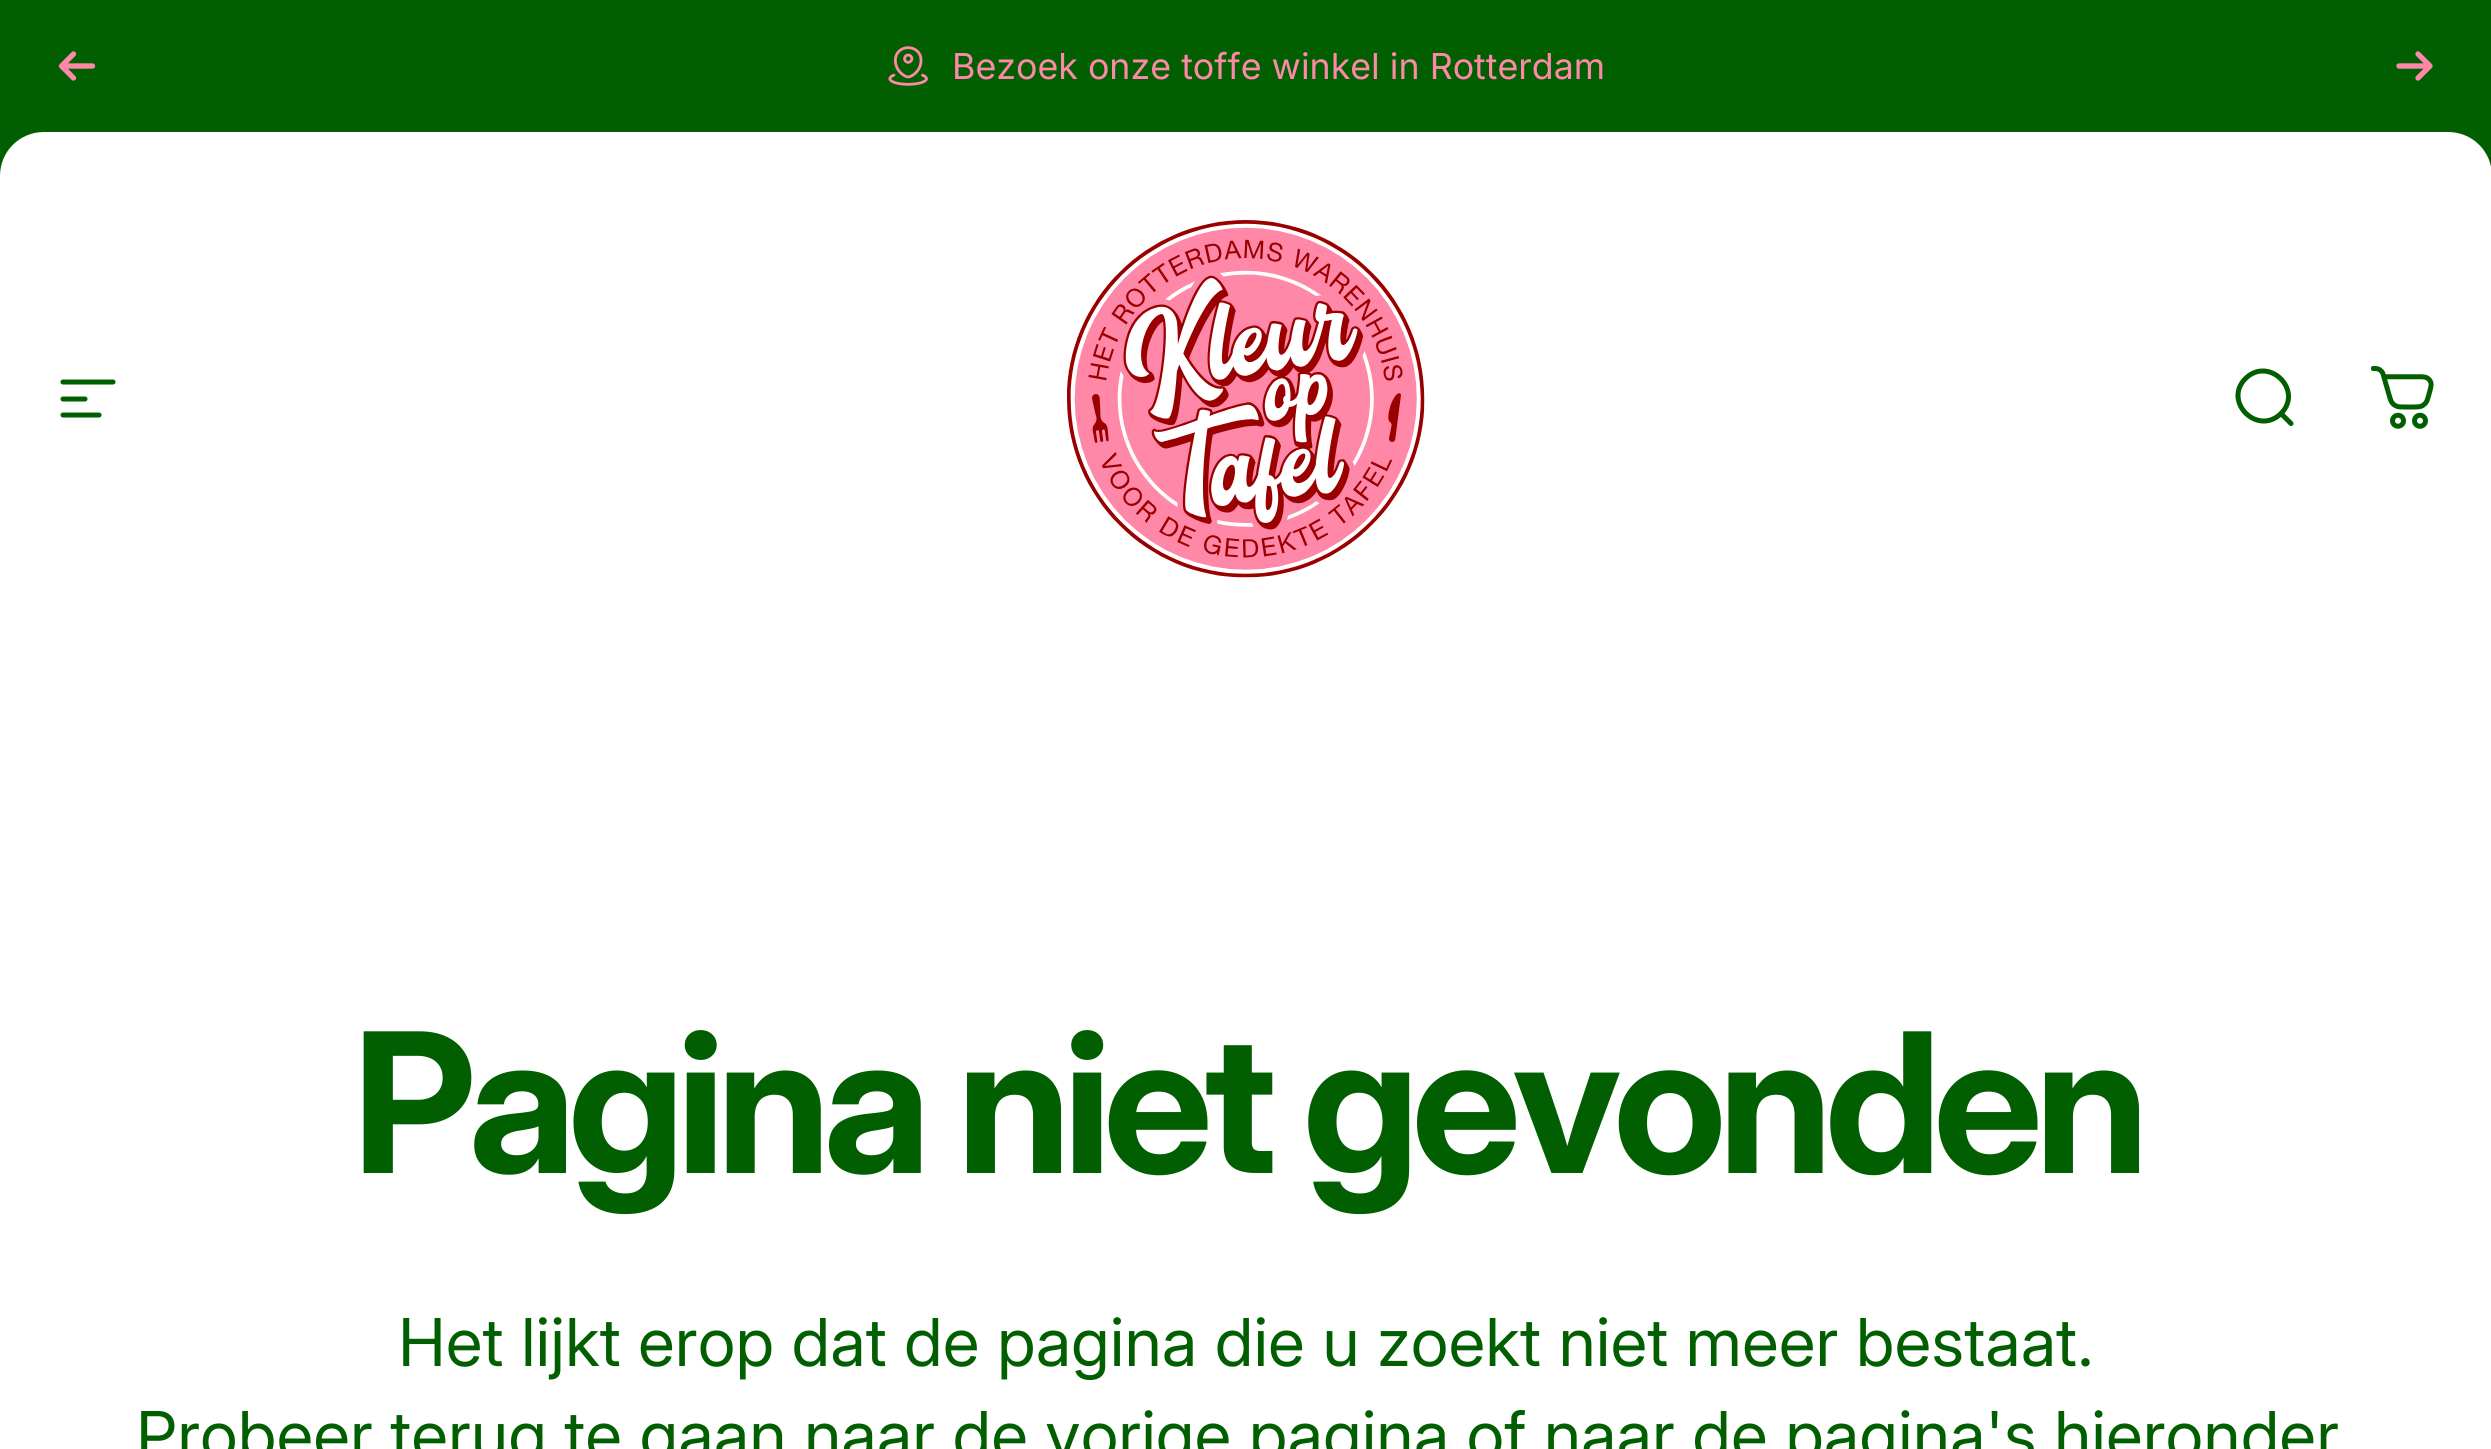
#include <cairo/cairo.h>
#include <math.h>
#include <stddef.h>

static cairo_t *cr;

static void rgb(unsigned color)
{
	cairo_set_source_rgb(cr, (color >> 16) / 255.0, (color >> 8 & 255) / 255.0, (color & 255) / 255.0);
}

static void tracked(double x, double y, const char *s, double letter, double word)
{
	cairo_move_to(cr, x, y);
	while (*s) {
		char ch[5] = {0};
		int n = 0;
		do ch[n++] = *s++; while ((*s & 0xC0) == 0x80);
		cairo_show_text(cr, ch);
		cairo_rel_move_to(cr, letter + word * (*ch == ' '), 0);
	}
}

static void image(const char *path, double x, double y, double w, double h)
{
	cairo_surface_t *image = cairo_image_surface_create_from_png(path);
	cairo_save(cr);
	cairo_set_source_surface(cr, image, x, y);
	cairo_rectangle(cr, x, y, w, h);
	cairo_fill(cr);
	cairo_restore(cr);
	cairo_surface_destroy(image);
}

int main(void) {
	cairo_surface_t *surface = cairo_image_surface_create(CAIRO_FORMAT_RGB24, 2491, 1449);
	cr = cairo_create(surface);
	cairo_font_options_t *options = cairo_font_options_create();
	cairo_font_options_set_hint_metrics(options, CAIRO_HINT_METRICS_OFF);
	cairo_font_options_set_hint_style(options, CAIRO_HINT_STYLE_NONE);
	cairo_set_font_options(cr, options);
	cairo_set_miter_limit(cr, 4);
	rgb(0xffffff);
	cairo_paint(cr);
	rgb(0x015f01);
	cairo_rectangle(cr, 0, 0, 2491, 44);
	cairo_fill(cr);
	cairo_new_path(cr);
	cairo_move_to(cr, 44, 0);
	cairo_line_to(cr, 2448, 0);
	cairo_curve_to(cr, 2472.5, 0, 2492, 19.5, 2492, 44);
	cairo_line_to(cr, 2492, 176);
	cairo_line_to(cr, 0, 176);
	cairo_line_to(cr, 0, 44);
	cairo_curve_to(cr, 0, 19.5, 19.5, 0, 44, 0);
	cairo_close_path(cr);
	cairo_fill(cr);
	cairo_new_path(cr);
	cairo_move_to(cr, 73.5, 54);
	cairo_line_to(cr, 61.5, 66);
	cairo_move_to(cr, 61.5, 66);
	cairo_line_to(cr, 73.5, 78);
	cairo_move_to(cr, 61.5, 66);
	cairo_line_to(cr, 92.5, 66);
	rgb(0xff88a8);
	cairo_set_line_width(cr, 5.3);
	cairo_set_line_cap(cr, CAIRO_LINE_CAP_ROUND);
	cairo_set_line_join(cr, CAIRO_LINE_JOIN_ROUND);
	cairo_stroke(cr);
	image("img/1.png", 888, 46, 40, 40);
	cairo_new_path(cr);
	cairo_move_to(cr, 2399, 66);
	cairo_line_to(cr, 2430, 66);
	cairo_move_to(cr, 2430, 66);
	cairo_line_to(cr, 2418, 54);
	cairo_move_to(cr, 2430, 66);
	cairo_line_to(cr, 2418, 78);
	cairo_stroke(cr);
	rgb(0xffffff);
	cairo_new_path(cr);
	cairo_move_to(cr, 44, 132);
	cairo_line_to(cr, 2448, 132);
	cairo_curve_to(cr, 2472.5, 132, 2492, 151.5, 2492, 176);
	cairo_line_to(cr, 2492, 666);
	cairo_line_to(cr, 0, 666);
	cairo_line_to(cr, 0, 176);
	cairo_curve_to(cr, 0, 151.5, 19.5, 132, 44, 132);
	cairo_close_path(cr);
	cairo_fill(cr);
	cairo_new_path(cr);
	cairo_move_to(cr, 63, 382);
	cairo_line_to(cr, 113, 382);
	cairo_move_to(cr, 63, 399);
	cairo_line_to(cr, 85, 399);
	cairo_move_to(cr, 63, 415);
	cairo_line_to(cr, 99, 415);
	rgb(0x015f01);
	cairo_set_line_width(cr, 5);
	cairo_set_line_join(cr, CAIRO_LINE_JOIN_MITER);
	cairo_stroke(cr);
	image("img/2.png", 1067, 220, 358, 358);
	cairo_new_path(cr);
	cairo_move_to(cr, 2291, 423.5);
	cairo_line_to(cr, 2281, 413.5);
	cairo_move_to(cr, 2281, 413.5);
	cairo_curve_to(cr, 2304, 390.5, 2269, 355.5, 2245.5, 378.5);
	cairo_curve_to(cr, 2222.5, 401.5, 2257.5, 436.5, 2281, 413.5);
	cairo_close_path(cr);
	cairo_stroke(cr);
	image("img/3.png", 2371, 366, 63, 63);
	cairo_select_font_face(cr, "Inter", CAIRO_FONT_SLANT_NORMAL, CAIRO_FONT_WEIGHT_NORMAL);
	cairo_set_font_size(cr, 35.75);
	rgb(0xff88a8);
	cairo_move_to(cr, 952, 79);
	cairo_show_text(cr, "Bezoek onze toffe winkel in Rotterdam");
	cairo_select_font_face(cr, "Inter", CAIRO_FONT_SLANT_NORMAL, CAIRO_FONT_WEIGHT_BOLD);
	cairo_set_font_size(cr, 194.75);
	rgb(0x015f01);
	tracked(353, 1173, "Pagina niet gevonden", -7.75, 0);
	cairo_select_font_face(cr, "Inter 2", CAIRO_FONT_SLANT_NORMAL, CAIRO_FONT_WEIGHT_NORMAL);
	cairo_set_font_size(cr, 66);
	cairo_move_to(cr, 398, 1366);
	cairo_show_text(cr, "Het lijkt erop dat de pagina die u zoekt niet meer bestaat.");
	cairo_move_to(cr, 136, 1459);
	cairo_show_text(cr, "Probeer terug te gaan naar de vorige pagina of naar de pagina's hieronder");
	cairo_surface_write_to_png(surface, "page.png");
	cairo_font_options_destroy(options);
	cairo_destroy(cr);
	cairo_surface_destroy(surface);
	return 0;
}
